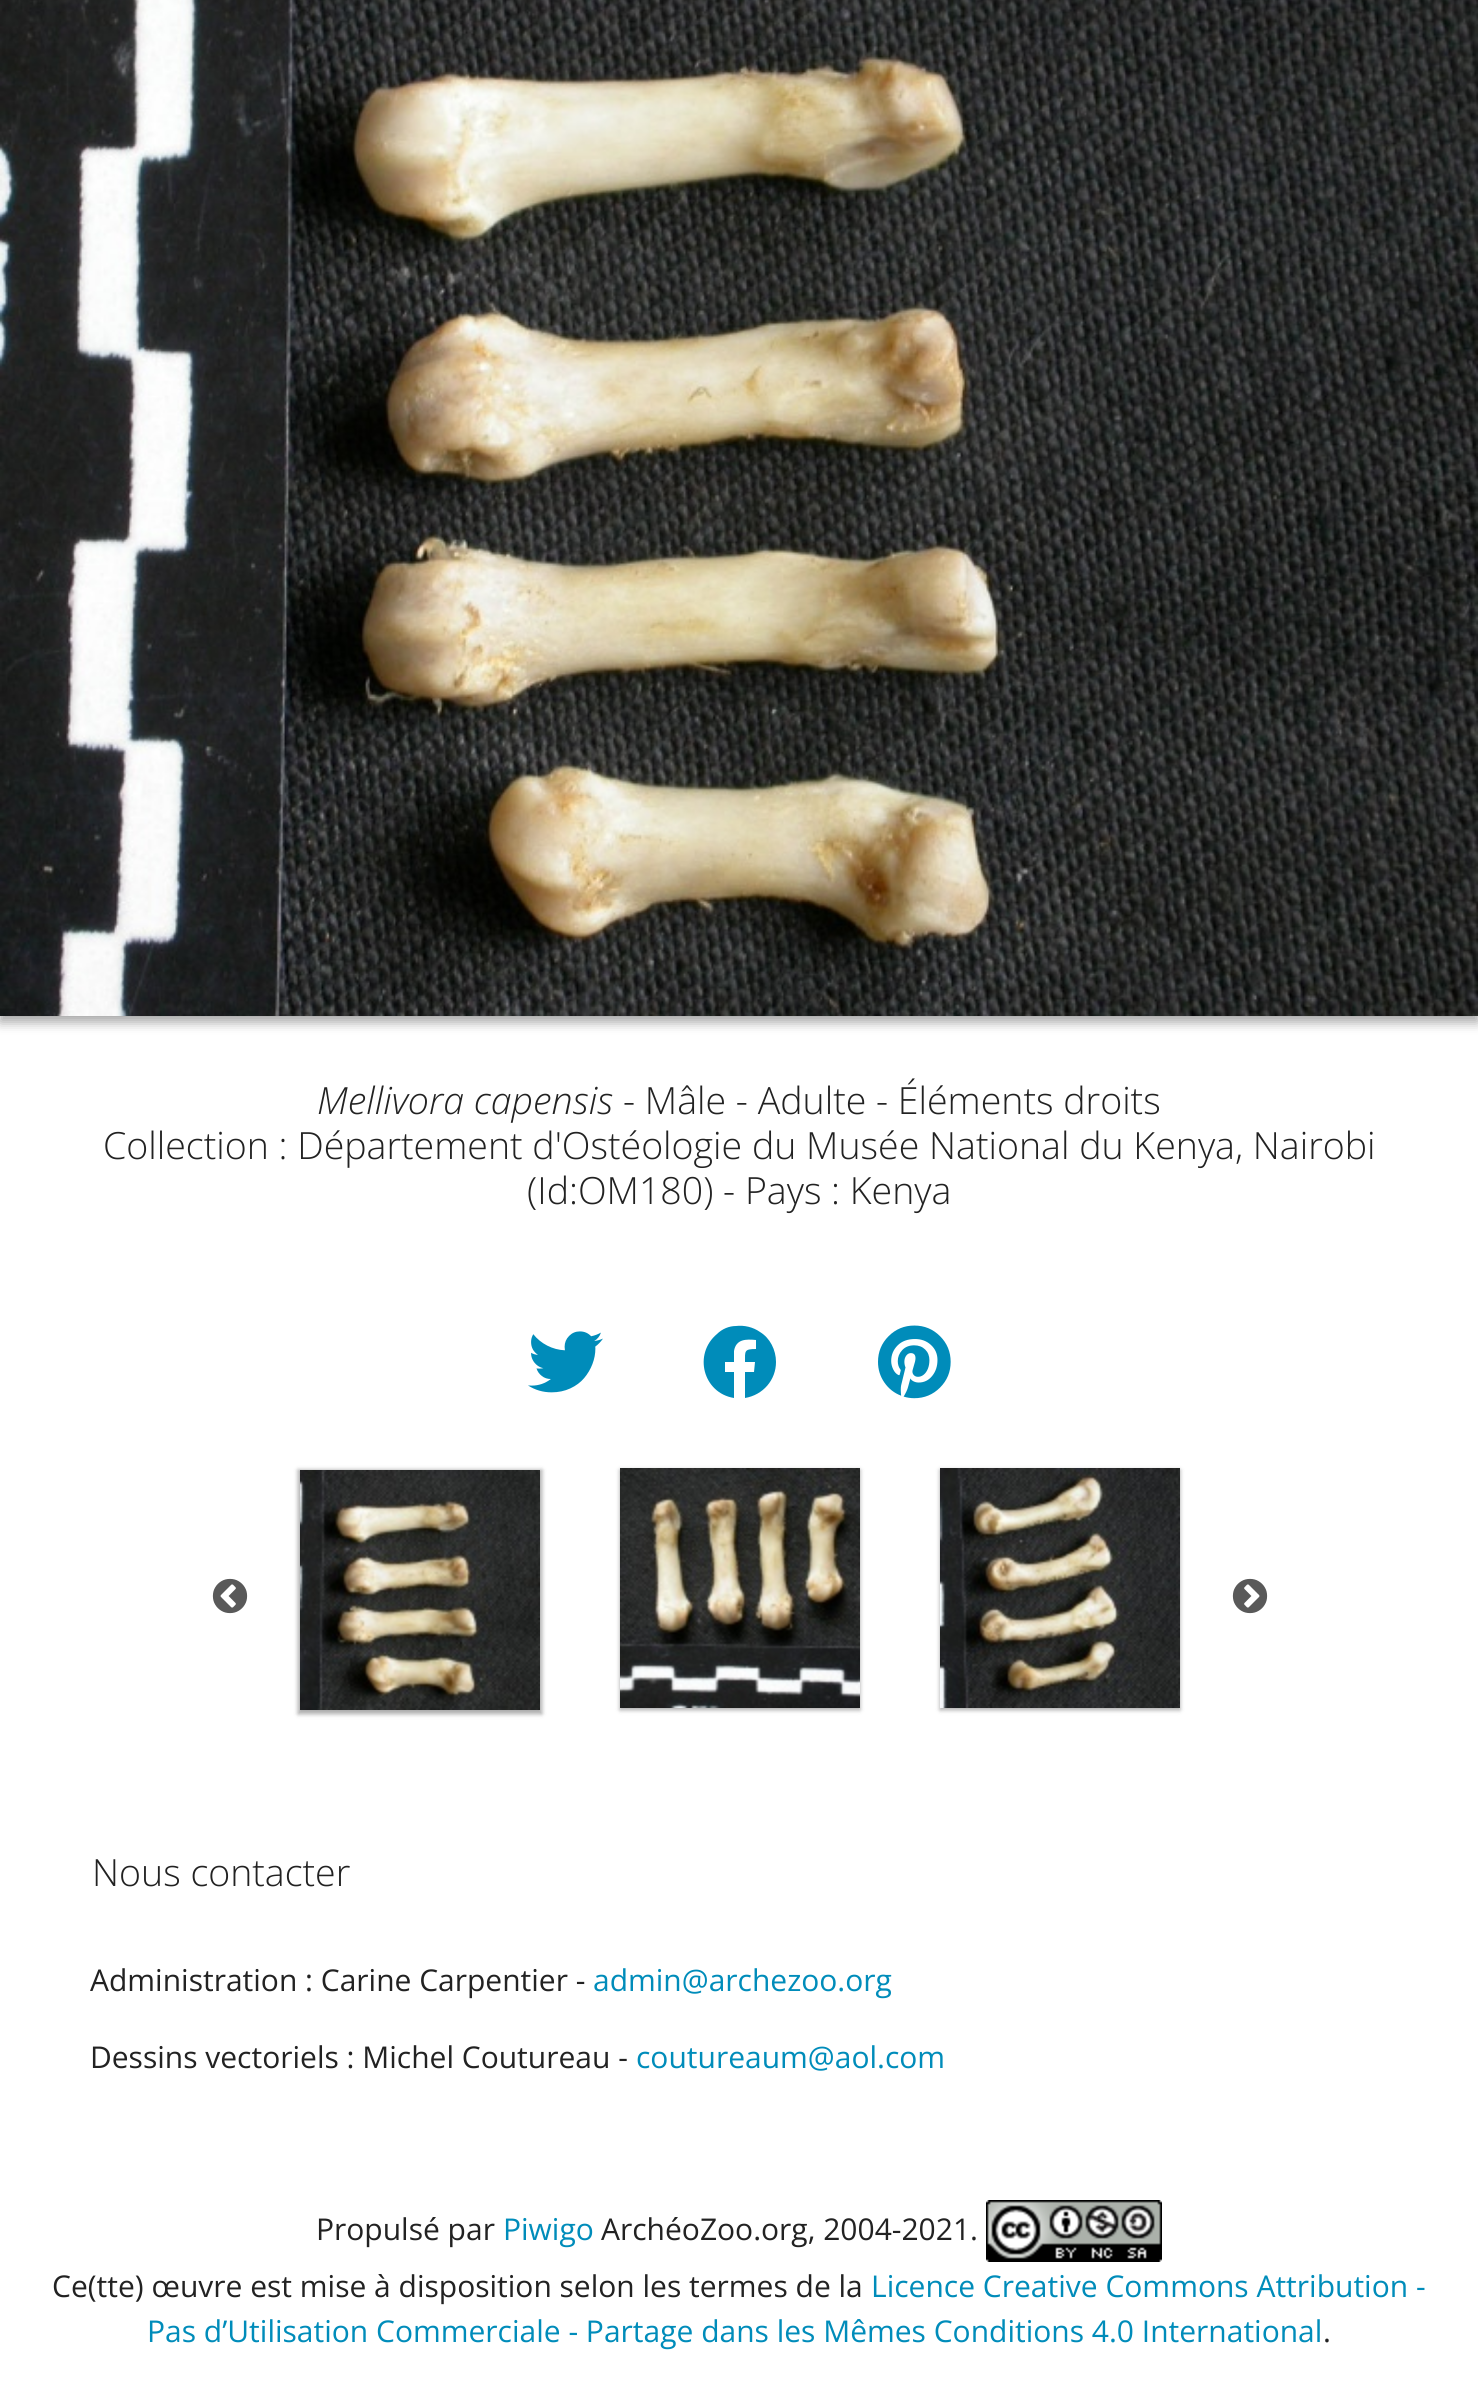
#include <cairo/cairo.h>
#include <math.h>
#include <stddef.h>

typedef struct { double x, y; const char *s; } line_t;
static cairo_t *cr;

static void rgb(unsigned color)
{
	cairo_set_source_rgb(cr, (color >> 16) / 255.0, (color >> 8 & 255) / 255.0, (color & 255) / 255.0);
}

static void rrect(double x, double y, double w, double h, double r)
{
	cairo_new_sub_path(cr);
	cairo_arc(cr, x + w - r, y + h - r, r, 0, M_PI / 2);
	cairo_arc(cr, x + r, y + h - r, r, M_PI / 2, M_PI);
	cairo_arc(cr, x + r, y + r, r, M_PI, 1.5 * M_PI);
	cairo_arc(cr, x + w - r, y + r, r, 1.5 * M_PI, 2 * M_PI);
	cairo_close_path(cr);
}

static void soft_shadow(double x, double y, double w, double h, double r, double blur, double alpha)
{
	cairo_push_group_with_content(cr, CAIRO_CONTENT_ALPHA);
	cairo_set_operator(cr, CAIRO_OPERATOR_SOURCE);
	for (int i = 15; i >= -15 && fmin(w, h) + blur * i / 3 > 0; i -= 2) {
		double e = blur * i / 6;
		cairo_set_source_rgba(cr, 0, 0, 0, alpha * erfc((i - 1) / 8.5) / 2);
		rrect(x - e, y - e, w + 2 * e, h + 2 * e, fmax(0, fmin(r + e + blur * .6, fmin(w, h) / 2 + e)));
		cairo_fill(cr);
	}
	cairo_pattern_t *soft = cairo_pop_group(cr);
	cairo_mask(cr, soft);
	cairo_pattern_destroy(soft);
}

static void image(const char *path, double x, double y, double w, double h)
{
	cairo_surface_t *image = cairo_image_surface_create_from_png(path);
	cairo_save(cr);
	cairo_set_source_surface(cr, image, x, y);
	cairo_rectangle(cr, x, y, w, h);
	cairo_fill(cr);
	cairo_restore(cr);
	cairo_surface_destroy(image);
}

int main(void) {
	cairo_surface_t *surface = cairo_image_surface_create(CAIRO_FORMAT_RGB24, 1478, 2384);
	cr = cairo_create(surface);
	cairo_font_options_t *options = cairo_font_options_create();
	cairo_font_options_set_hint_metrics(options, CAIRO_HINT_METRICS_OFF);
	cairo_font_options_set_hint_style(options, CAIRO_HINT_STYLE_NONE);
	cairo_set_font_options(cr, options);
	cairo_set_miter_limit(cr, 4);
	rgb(0xffffff);
	cairo_paint(cr);
	rgb(0x000000);
	soft_shadow(0, -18, 1478, 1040, 0, 6, 0.23);
	soft_shadow(0, -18, 1478, 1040, 0, 6, 0.16);
	image("img/1.png", 0, 0, 1478, 1016);
	image("img/2.png", 528, 1331, 75, 62);
	rgb(0x008cba);
	cairo_new_path(cr);
	cairo_move_to(cr, 776, 1362);
	cairo_curve_to(cr, 776, 1380, 763, 1395, 745, 1398);
	cairo_line_to(cr, 745, 1372);
	cairo_line_to(cr, 754, 1372);
	cairo_line_to(cr, 755, 1362);
	cairo_line_to(cr, 745, 1362);
	cairo_curve_to(cr, 745, 1351, 744, 1349, 756, 1349);
	cairo_line_to(cr, 756, 1340);
	cairo_curve_to(cr, 746, 1339, 736, 1339, 734, 1351);
	cairo_line_to(cr, 734, 1362);
	cairo_line_to(cr, 725, 1362);
	cairo_line_to(cr, 725, 1372);
	cairo_line_to(cr, 734, 1372);
	cairo_line_to(cr, 734, 1398);
	cairo_curve_to(cr, 703, 1393, 693, 1354, 717, 1334);
	cairo_curve_to(cr, 722, 1329, 729, 1326, 736, 1326);
	cairo_curve_to(cr, 744, 1325, 753, 1327, 760, 1332);
	cairo_curve_to(cr, 770, 1338, 776, 1350, 776, 1362);
	cairo_close_path(cr);
	cairo_fill(cr);
	image("img/3.png", 878, 1325, 73, 74);
	image("img/4.png", 212, 1578, 36, 36);
	rgb(0x000000);
	soft_shadow(298, 1470, 244, 244, 0, 3, 0.12);
	soft_shadow(298, 1470, 244, 244, 0, 2, 0.24);
	image("img/5.png", 300, 1470, 240, 240);
	soft_shadow(620, 1470, 240, 240, 0, 3, 0.12);
	soft_shadow(620, 1470, 240, 240, 0, 2, 0.24);
	image("img/6.png", 620, 1468, 240, 240);
	soft_shadow(940, 1470, 240, 240, 0, 3, 0.12);
	soft_shadow(940, 1470, 240, 240, 0, 2, 0.24);
	image("img/7.png", 940, 1468, 240, 240);
	image("img/8.png", 1232, 1578, 36, 36);
	image("img/9.png", 986, 2200, 176, 62);
	cairo_select_font_face(cr, "Open Sans Light", CAIRO_FONT_SLANT_ITALIC, CAIRO_FONT_WEIGHT_NORMAL);
	cairo_set_font_size(cr, 37.5);
	rgb(0x222222);
	cairo_move_to(cr, 317, 1114);
	cairo_show_text(cr, "Mellivora capensis");
	cairo_select_font_face(cr, "Open Sans Light", CAIRO_FONT_SLANT_NORMAL, CAIRO_FONT_WEIGHT_NORMAL);
	{
		static const line_t items[] = {
			{623, 1114, "- Mâle - Adulte - Éléments droits"},
			{103, 1159, "Collection : Département d'Ostéologie du Musée National du Kenya, Nairobi"},
			{527, 1204, "(Id:OM180) - Pays : Kenya"},
			{92, 1886, "Nous contacter"},
		};
		for (size_t i = 0; i < sizeof items / sizeof *items; i++) {
			cairo_move_to(cr, items[i].x, items[i].y);
			cairo_show_text(cr, items[i].s);
		}
	}
	cairo_select_font_face(cr, "Open Sans", CAIRO_FONT_SLANT_NORMAL, CAIRO_FONT_WEIGHT_NORMAL);
	cairo_set_font_size(cr, 30);
	cairo_move_to(cr, 90, 1991);
	cairo_show_text(cr, "Administration : Carine Carpentier -");
	rgb(0x008cba);
	cairo_move_to(cr, 593, 1991);
	cairo_show_text(cr, "admin@archezoo.org");
	rgb(0x222222);
	cairo_move_to(cr, 90, 2068);
	cairo_show_text(cr, "Dessins vectoriels : Michel Coutureau -");
	rgb(0x008cba);
	cairo_move_to(cr, 636, 2068);
	cairo_show_text(cr, "coutureaum@aol.com");
	rgb(0x222222);
	cairo_move_to(cr, 316, 2240);
	cairo_show_text(cr, "Propulsé par");
	rgb(0x008cba);
	cairo_move_to(cr, 503, 2240);
	cairo_show_text(cr, "Piwigo");
	rgb(0x222222);
	cairo_move_to(cr, 601, 2240);
	cairo_show_text(cr, "ArchéoZoo.org, 2004-2021.");
	cairo_move_to(cr, 52, 2297);
	cairo_show_text(cr, "Ce(tte) œuvre est mise à disposition selon les termes de la");
	rgb(0x008cba);
	cairo_move_to(cr, 871, 2297);
	cairo_show_text(cr, "Licence Creative Commons Attribution -");
	cairo_move_to(cr, 147, 2342);
	cairo_show_text(cr, "Pas d’Utilisation Commerciale - Partage dans les Mêmes Conditions 4.0 International");
	rgb(0x222222);
	cairo_move_to(cr, 1323, 2342);
	cairo_show_text(cr, ".");
	cairo_surface_write_to_png(surface, "page.png");
	cairo_font_options_destroy(options);
	cairo_destroy(cr);
	cairo_surface_destroy(surface);
	return 0;
}
